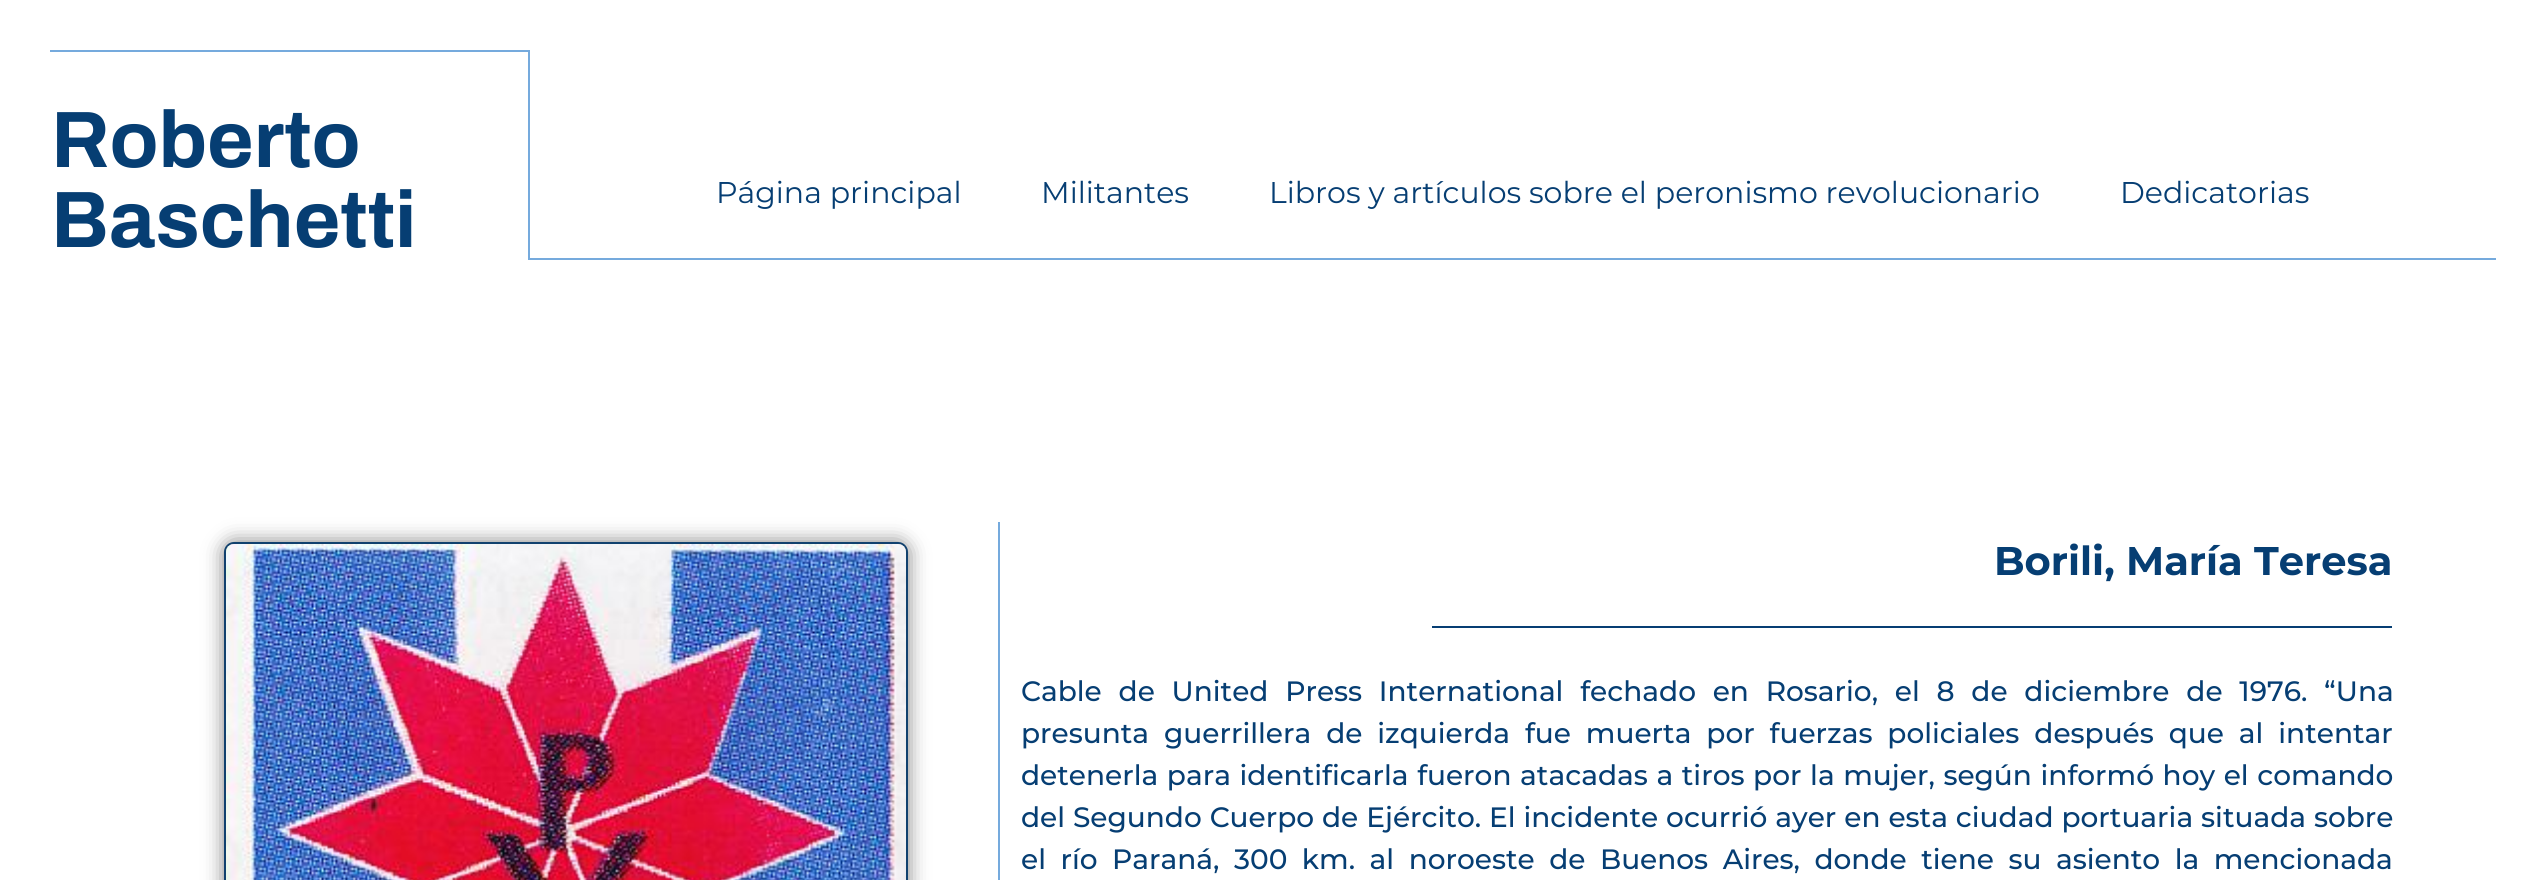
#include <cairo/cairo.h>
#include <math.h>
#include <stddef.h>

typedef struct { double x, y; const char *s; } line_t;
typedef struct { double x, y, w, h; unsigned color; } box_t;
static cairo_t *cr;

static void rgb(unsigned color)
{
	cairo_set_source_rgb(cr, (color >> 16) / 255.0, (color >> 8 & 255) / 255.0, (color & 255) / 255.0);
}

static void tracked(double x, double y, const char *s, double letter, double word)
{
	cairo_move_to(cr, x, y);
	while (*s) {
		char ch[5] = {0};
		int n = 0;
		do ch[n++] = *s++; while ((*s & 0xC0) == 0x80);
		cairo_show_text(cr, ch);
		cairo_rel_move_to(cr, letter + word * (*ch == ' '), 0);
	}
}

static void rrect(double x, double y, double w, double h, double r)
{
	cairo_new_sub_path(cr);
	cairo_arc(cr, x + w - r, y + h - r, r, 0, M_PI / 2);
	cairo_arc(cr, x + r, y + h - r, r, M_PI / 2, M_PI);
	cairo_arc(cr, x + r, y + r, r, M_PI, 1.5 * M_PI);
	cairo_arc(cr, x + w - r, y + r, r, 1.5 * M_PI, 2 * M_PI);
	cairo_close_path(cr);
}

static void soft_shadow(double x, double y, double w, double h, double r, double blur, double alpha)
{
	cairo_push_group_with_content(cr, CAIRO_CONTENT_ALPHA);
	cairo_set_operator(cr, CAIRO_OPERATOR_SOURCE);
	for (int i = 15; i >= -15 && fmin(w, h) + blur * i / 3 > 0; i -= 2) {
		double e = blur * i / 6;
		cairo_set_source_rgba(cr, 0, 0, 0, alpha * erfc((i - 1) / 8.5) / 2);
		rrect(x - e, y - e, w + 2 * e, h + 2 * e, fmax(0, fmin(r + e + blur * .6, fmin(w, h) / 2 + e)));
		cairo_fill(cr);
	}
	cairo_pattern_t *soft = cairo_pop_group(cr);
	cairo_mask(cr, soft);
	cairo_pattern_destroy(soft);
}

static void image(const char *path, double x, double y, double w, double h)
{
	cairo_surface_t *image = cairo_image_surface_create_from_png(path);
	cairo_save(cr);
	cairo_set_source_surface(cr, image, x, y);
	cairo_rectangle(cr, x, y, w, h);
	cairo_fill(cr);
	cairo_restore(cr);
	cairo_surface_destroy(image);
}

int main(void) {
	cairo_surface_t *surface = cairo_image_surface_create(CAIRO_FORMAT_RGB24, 2546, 880);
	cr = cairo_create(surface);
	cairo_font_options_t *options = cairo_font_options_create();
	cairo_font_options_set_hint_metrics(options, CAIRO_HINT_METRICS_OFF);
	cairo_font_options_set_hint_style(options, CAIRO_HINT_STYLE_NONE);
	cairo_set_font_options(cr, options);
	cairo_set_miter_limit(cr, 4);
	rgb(0xffffff);
	cairo_paint(cr);
	{
		static const box_t items[] = {
			{50, 50, 480, 2, 0x75aadd},
			{528, 50, 2, 210, 0x75aadd},
			{530, 258, 1966, 2, 0x75aadd},
			{998, 522, 2, 358, 0x75aadd},
		};
		for (size_t i = 0; i < sizeof items / sizeof *items; i++) {
			rgb(items[i].color);
			cairo_rectangle(cr, items[i].x, items[i].y, items[i].w, items[i].h);
			cairo_fill(cr);
		}
	}
	rgb(0x000000);
	soft_shadow(224, 542, 684, 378, 10, 10, 0.5);
	rrect(225, 543, 682, 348, 9);
	rgb(0x11416e);
	cairo_stroke(cr);
	image("img/1.png", 226, 544, 680, 336);
	rgb(0x063e73);
	cairo_rectangle(cr, 1432, 626, 960, 2);
	cairo_fill(cr);
	cairo_select_font_face(cr, "Archivo", CAIRO_FONT_SLANT_NORMAL, CAIRO_FONT_WEIGHT_BOLD);
	cairo_set_font_size(cr, 80);
	cairo_move_to(cr, 51, 167);
	cairo_show_text(cr, "Roberto");
	cairo_move_to(cr, 51, 247);
	cairo_show_text(cr, "Baschetti");
	cairo_select_font_face(cr, "Montserrat", CAIRO_FONT_SLANT_NORMAL, CAIRO_FONT_WEIGHT_NORMAL);
	cairo_set_font_size(cr, 30);
	{
		static const line_t items[] = {
			{716, 203, "Página principal"},
			{1041, 203, "Militantes"},
			{1269, 203, "Libros y artículos sobre el peronismo revolucionario"},
			{2120, 203, "Dedicatorias"},
		};
		for (size_t i = 0; i < sizeof items / sizeof *items; i++) {
			cairo_move_to(cr, items[i].x, items[i].y);
			cairo_show_text(cr, items[i].s);
		}
	}
	cairo_select_font_face(cr, "Montserrat", CAIRO_FONT_SLANT_NORMAL, CAIRO_FONT_WEIGHT_BOLD);
	cairo_set_font_size(cr, 40);
	cairo_move_to(cr, 1994, 575);
	cairo_show_text(cr, "Borili, María Teresa");
	cairo_select_font_face(cr, "Montserrat Medium", CAIRO_FONT_SLANT_NORMAL, CAIRO_FONT_WEIGHT_NORMAL);
	cairo_set_font_size(cr, 28);
	tracked(1021, 701, "Cable de United Press International fechado en Rosario, el 8 de diciembre de 1976. “Una", 0, 9.25);
	tracked(1021, 743, "presunta guerrillera de izquierda fue muerta por fuerzas policiales después que al intentar", 0, 7.4);
	tracked(1021, 785, "detenerla para identificarla fueron atacadas a tiros por la mujer, según informó hoy el comando", 0, 1.1);
	tracked(1021, 827, "del Segundo Cuerpo de Ejército. El incidente ocurrió ayer en esta ciudad portuaria situada sobre", 0, 0.4);
	tracked(1021, 869, "el río Paraná, 300 km. al noroeste de Buenos Aires, donde tiene su asiento la mencionada", 0, 7);
	cairo_surface_write_to_png(surface, "page.png");
	cairo_font_options_destroy(options);
	cairo_destroy(cr);
	cairo_surface_destroy(surface);
	return 0;
}
